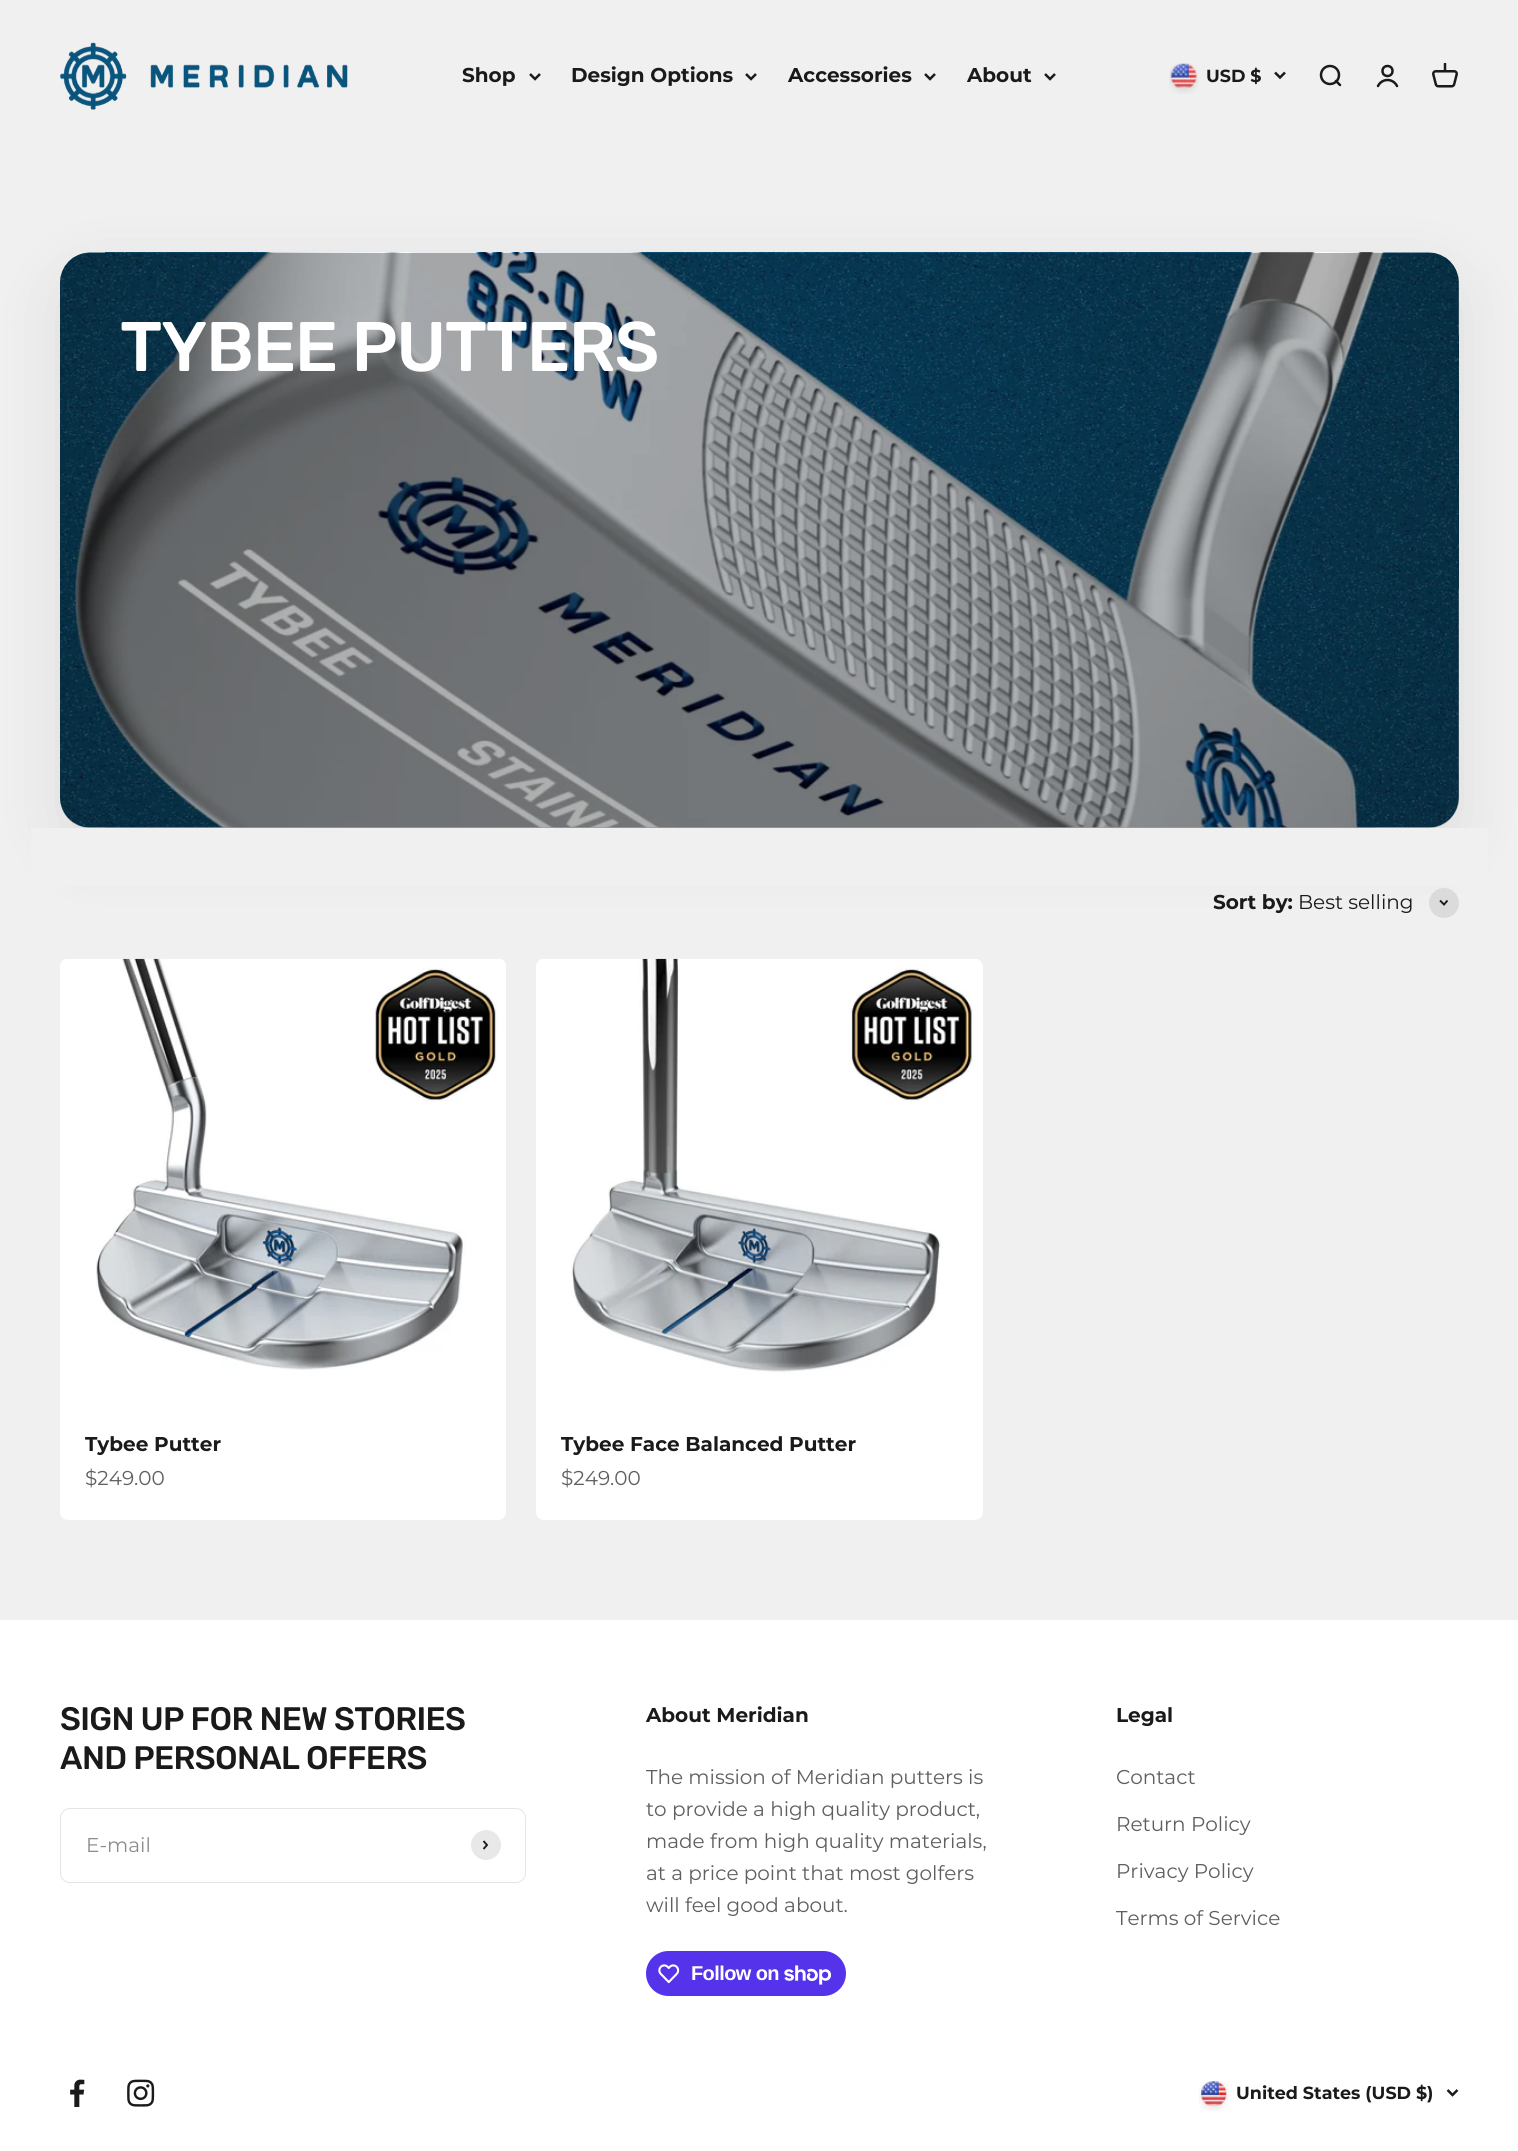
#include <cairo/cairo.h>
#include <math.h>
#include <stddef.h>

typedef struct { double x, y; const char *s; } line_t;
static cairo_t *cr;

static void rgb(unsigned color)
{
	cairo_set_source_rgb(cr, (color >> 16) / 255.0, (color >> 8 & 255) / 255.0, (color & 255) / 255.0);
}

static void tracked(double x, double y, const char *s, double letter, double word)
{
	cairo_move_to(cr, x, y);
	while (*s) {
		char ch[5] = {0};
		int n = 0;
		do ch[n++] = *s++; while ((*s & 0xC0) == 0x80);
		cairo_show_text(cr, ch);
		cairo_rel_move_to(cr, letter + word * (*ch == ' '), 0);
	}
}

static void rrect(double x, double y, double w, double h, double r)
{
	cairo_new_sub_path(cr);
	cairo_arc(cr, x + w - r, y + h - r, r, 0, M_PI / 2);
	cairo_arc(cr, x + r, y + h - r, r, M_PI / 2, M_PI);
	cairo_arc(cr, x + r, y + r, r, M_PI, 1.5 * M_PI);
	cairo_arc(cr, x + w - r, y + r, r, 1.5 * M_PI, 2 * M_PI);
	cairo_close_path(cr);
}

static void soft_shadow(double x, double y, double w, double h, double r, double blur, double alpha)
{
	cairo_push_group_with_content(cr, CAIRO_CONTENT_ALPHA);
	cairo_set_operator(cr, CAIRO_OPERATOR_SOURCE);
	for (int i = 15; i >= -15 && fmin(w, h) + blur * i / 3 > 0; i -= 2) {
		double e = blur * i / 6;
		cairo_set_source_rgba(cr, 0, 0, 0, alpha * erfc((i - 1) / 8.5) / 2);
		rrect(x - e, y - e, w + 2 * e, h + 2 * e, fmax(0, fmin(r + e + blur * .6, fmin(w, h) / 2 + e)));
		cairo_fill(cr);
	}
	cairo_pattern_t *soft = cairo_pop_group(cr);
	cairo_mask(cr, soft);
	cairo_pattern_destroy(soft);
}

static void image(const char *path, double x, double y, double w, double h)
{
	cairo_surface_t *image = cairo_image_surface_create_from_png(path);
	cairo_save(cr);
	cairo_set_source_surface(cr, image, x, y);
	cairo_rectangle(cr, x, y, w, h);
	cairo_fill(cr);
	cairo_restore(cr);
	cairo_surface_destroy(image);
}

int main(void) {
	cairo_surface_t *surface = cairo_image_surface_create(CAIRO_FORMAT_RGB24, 1518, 2151);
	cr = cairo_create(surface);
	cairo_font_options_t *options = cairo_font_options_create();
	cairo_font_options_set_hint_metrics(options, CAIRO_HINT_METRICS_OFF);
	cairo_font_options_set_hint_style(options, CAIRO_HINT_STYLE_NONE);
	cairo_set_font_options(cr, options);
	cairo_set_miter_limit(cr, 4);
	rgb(0xf0f0f0);
	cairo_paint(cr);
	image("img/1.png", 60, 42, 288, 68);
	cairo_new_path(cr);
	cairo_move_to(cr, 530, 74);
	cairo_line_to(cr, 535, 79);
	cairo_line_to(cr, 540, 74);
	rgb(0x1a1a1a);
	cairo_set_line_width(cr, 2.5);
	cairo_stroke(cr);
	cairo_new_path(cr);
	cairo_move_to(cr, 746, 74);
	cairo_line_to(cr, 751, 79);
	cairo_line_to(cr, 756, 74);
	cairo_stroke(cr);
	cairo_new_path(cr);
	cairo_move_to(cr, 925, 74);
	cairo_line_to(cr, 930, 79);
	cairo_line_to(cr, 935, 74);
	cairo_stroke(cr);
	cairo_new_path(cr);
	cairo_move_to(cr, 1045, 74);
	cairo_line_to(cr, 1050, 79);
	cairo_line_to(cr, 1055, 74);
	cairo_stroke(cr);
	image("img/2.png", 1169, 63, 30, 31);
	cairo_new_path(cr);
	cairo_move_to(cr, 1275, 72.5);
	cairo_line_to(cr, 1280, 77.5);
	cairo_line_to(cr, 1285, 72.5);
	cairo_stroke(cr);
	cairo_arc(cr, 1330, 75, 9, 0, 2 * M_PI);
	cairo_stroke(cr);
	cairo_new_path(cr);
	cairo_move_to(cr, 1336, 81);
	cairo_line_to(cr, 1340, 85);
	cairo_set_line_cap(cr, CAIRO_LINE_CAP_ROUND);
	cairo_set_line_join(cr, CAIRO_LINE_JOIN_ROUND);
	cairo_stroke(cr);
	cairo_arc(cr, 1387.5, 71, 5, 0, 2 * M_PI);
	cairo_set_line_cap(cr, CAIRO_LINE_CAP_BUTT);
	cairo_set_line_join(cr, CAIRO_LINE_JOIN_MITER);
	cairo_stroke(cr);
	cairo_new_path(cr);
	cairo_move_to(cr, 1378, 86);
	cairo_curve_to(cr, 1382, 78, 1393, 78, 1397, 86);
	cairo_set_line_cap(cr, CAIRO_LINE_CAP_ROUND);
	cairo_stroke(cr);
	image("img/3.png", 1432, 63, 26, 25);
	rgb(0x1a1a1a);
	soft_shadow(60, 275, 1399, 575, 30, 31, 0.1);
	image("img/4.png", 60, 252, 1399, 576);
	cairo_set_source_rgba(cr, 0, 0, 0, 0.3);
	rrect(60, 253, 1399, 575, 30);
	cairo_fill(cr);
	rgb(0xf0f0f0);
	cairo_rectangle(cr, 31, 828, 1457, 58);
	cairo_fill(cr);
	rgb(0xdbdbdb);
	cairo_arc(cr, 1444, 903, 15, 0, 2 * M_PI);
	cairo_fill(cr);
	cairo_new_path(cr);
	cairo_move_to(cr, 1440, 900.5);
	cairo_line_to(cr, 1444, 904.5);
	cairo_line_to(cr, 1447.5, 900.5);
	rgb(0x1a1a1a);
	cairo_set_line_width(cr, 1.9);
	cairo_set_line_cap(cr, CAIRO_LINE_CAP_BUTT);
	cairo_stroke(cr);
	rgb(0xffffff);
	rrect(60, 959, 446, 561, 8);
	cairo_fill(cr);
	image("img/5.png", 61, 958, 445, 412);
	rrect(536, 959, 447, 561, 8);
	cairo_fill(cr);
	image("img/6.png", 539, 958, 439, 416);
	cairo_rectangle(cr, 0, 1620, 1518, 531);
	cairo_fill(cr);
	rrect(60.5, 1808.5, 465, 74, 9.5);
	rgb(0xe4e4e4);
	cairo_set_line_width(cr, 1);
	cairo_stroke(cr);
	rgb(0xe8e8e8);
	cairo_arc(cr, 486, 1845, 15, 0, 2 * M_PI);
	cairo_fill(cr);
	cairo_new_path(cr);
	cairo_move_to(cr, 483.5, 1849);
	cairo_line_to(cr, 487, 1845);
	cairo_line_to(cr, 483.5, 1841);
	rgb(0x1a1a1a);
	cairo_set_line_width(cr, 1.9);
	cairo_stroke(cr);
	rgb(0x5433eb);
	rrect(646, 1951, 200, 45, 22.5);
	cairo_fill(cr);
	image("img/7.png", 658, 1964, 22, 20);
	image("img/8.png", 784, 1965, 47, 20);
	image("img/9.png", 70, 2079, 15, 28);
	image("img/10.png", 127, 2079, 28, 28);
	image("img/11.png", 1199, 2081, 30, 30);
	cairo_new_path(cr);
	cairo_move_to(cr, 1447.5, 2090);
	cairo_line_to(cr, 1452.5, 2095);
	cairo_line_to(cr, 1457.5, 2090);
	rgb(0x1a1a1a);
	cairo_set_line_width(cr, 2.5);
	cairo_stroke(cr);
	cairo_select_font_face(cr, "Montserrat", CAIRO_FONT_SLANT_NORMAL, CAIRO_FONT_WEIGHT_BOLD);
	cairo_set_font_size(cr, 20);
	{
		static const line_t items[] = {
			{462, 82, "Shop"},
			{571, 82, "Design Options"},
			{788, 82, "Accessories"},
			{967, 82, "About"},
		};
		for (size_t i = 0; i < sizeof items / sizeof *items; i++) {
			cairo_move_to(cr, items[i].x, items[i].y);
			cairo_show_text(cr, items[i].s);
		}
	}
	cairo_set_font_size(cr, 17.5);
	cairo_move_to(cr, 1206, 82);
	cairo_show_text(cr, "USD $");
	cairo_select_font_face(cr, "Rubik Medium", CAIRO_FONT_SLANT_NORMAL, CAIRO_FONT_WEIGHT_NORMAL);
	cairo_set_font_size(cr, 70);
	rgb(0xffffff);
	tracked(120, 371, "TYBEE PUTTERS", -1.4, 0);
	cairo_select_font_face(cr, "Montserrat", CAIRO_FONT_SLANT_NORMAL, CAIRO_FONT_WEIGHT_BOLD);
	cairo_set_font_size(cr, 20);
	rgb(0x1a1a1a);
	cairo_move_to(cr, 1213, 909);
	cairo_show_text(cr, "Sort by:");
	cairo_select_font_face(cr, "Montserrat", CAIRO_FONT_SLANT_NORMAL, CAIRO_FONT_WEIGHT_NORMAL);
	cairo_move_to(cr, 1298, 909);
	cairo_show_text(cr, "Best selling");
	cairo_select_font_face(cr, "Montserrat", CAIRO_FONT_SLANT_NORMAL, CAIRO_FONT_WEIGHT_BOLD);
	cairo_move_to(cr, 85, 1451);
	cairo_show_text(cr, "Tybee Putter");
	cairo_select_font_face(cr, "Montserrat", CAIRO_FONT_SLANT_NORMAL, CAIRO_FONT_WEIGHT_NORMAL);
	rgb(0x5f5f5f);
	cairo_move_to(cr, 85, 1485);
	cairo_show_text(cr, "$249.00");
	cairo_select_font_face(cr, "Montserrat", CAIRO_FONT_SLANT_NORMAL, CAIRO_FONT_WEIGHT_BOLD);
	rgb(0x1a1a1a);
	cairo_move_to(cr, 561, 1451);
	cairo_show_text(cr, "Tybee Face Balanced Putter");
	cairo_select_font_face(cr, "Montserrat", CAIRO_FONT_SLANT_NORMAL, CAIRO_FONT_WEIGHT_NORMAL);
	rgb(0x5f5f5f);
	cairo_move_to(cr, 561, 1485);
	cairo_show_text(cr, "$249.00");
	cairo_select_font_face(cr, "Rubik Medium", CAIRO_FONT_SLANT_NORMAL, CAIRO_FONT_WEIGHT_NORMAL);
	cairo_set_font_size(cr, 32.5);
	rgb(0x1a1a1a);
	tracked(60, 1730, "SIGN UP FOR NEW STORIES", -0.65, 0);
	tracked(60, 1769, "AND PERSONAL OFFERS", -0.65, 0);
	cairo_select_font_face(cr, "Montserrat", CAIRO_FONT_SLANT_NORMAL, CAIRO_FONT_WEIGHT_NORMAL);
	cairo_set_font_size(cr, 20);
	rgb(0x8d8d8d);
	cairo_move_to(cr, 86, 1852);
	cairo_show_text(cr, "E-mail");
	cairo_select_font_face(cr, "Montserrat", CAIRO_FONT_SLANT_NORMAL, CAIRO_FONT_WEIGHT_BOLD);
	rgb(0x1a1a1a);
	cairo_move_to(cr, 646, 1722);
	cairo_show_text(cr, "About Meridian");
	cairo_select_font_face(cr, "Montserrat", CAIRO_FONT_SLANT_NORMAL, CAIRO_FONT_WEIGHT_NORMAL);
	rgb(0x5f5f5f);
	{
		static const line_t items[] = {
			{646, 1784, "The mission of Meridian putters is"},
			{646, 1816, "to provide a high quality product,"},
			{646, 1848, "made from high quality materials,"},
			{646, 1880, "at a price point that most golfers"},
			{646, 1912, "will feel good about."},
		};
		for (size_t i = 0; i < sizeof items / sizeof *items; i++) {
			cairo_move_to(cr, items[i].x, items[i].y);
			cairo_show_text(cr, items[i].s);
		}
	}
	cairo_select_font_face(cr, "Liberation Sans", CAIRO_FONT_SLANT_NORMAL, CAIRO_FONT_WEIGHT_BOLD);
	rgb(0xffffff);
	tracked(691, 1980, "Follow on", -0.6, 0);
	cairo_select_font_face(cr, "Montserrat", CAIRO_FONT_SLANT_NORMAL, CAIRO_FONT_WEIGHT_BOLD);
	rgb(0x1a1a1a);
	cairo_move_to(cr, 1116, 1722);
	cairo_show_text(cr, "Legal");
	cairo_select_font_face(cr, "Montserrat", CAIRO_FONT_SLANT_NORMAL, CAIRO_FONT_WEIGHT_NORMAL);
	rgb(0x5f5f5f);
	{
		static const line_t items[] = {
			{1116, 1784, "Contact"},
			{1116, 1831, "Return Policy"},
			{1116, 1878, "Privacy Policy"},
			{1116, 1925, "Terms of Service"},
		};
		for (size_t i = 0; i < sizeof items / sizeof *items; i++) {
			cairo_move_to(cr, items[i].x, items[i].y);
			cairo_show_text(cr, items[i].s);
		}
	}
	cairo_select_font_face(cr, "Montserrat", CAIRO_FONT_SLANT_NORMAL, CAIRO_FONT_WEIGHT_BOLD);
	cairo_set_font_size(cr, 17.5);
	rgb(0x1a1a1a);
	cairo_move_to(cr, 1236, 2099);
	cairo_show_text(cr, "United States (USD $)");
	cairo_surface_write_to_png(surface, "page.png");
	cairo_font_options_destroy(options);
	cairo_destroy(cr);
	cairo_surface_destroy(surface);
	return 0;
}
